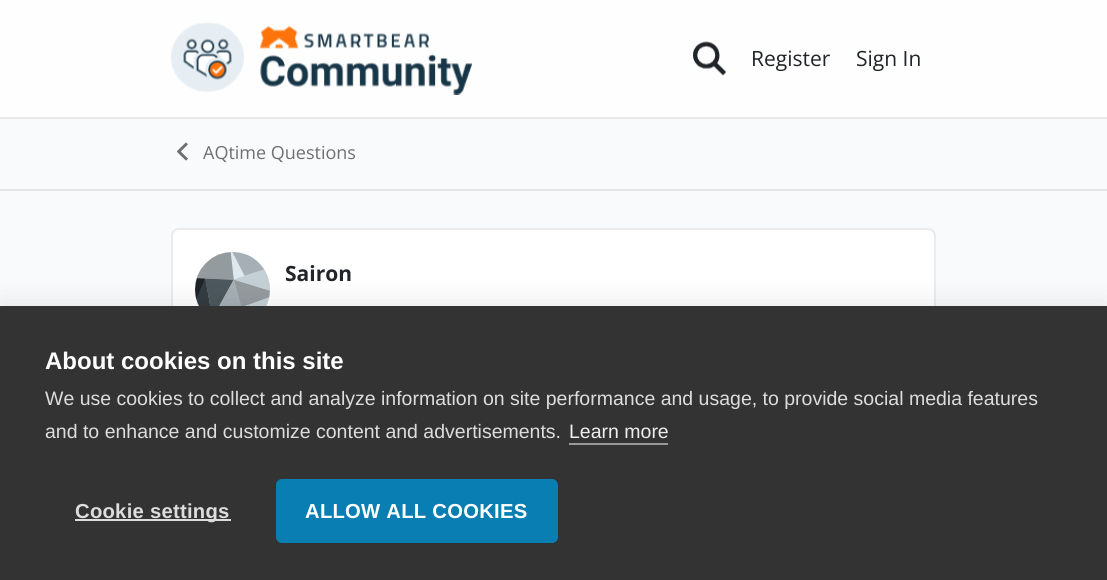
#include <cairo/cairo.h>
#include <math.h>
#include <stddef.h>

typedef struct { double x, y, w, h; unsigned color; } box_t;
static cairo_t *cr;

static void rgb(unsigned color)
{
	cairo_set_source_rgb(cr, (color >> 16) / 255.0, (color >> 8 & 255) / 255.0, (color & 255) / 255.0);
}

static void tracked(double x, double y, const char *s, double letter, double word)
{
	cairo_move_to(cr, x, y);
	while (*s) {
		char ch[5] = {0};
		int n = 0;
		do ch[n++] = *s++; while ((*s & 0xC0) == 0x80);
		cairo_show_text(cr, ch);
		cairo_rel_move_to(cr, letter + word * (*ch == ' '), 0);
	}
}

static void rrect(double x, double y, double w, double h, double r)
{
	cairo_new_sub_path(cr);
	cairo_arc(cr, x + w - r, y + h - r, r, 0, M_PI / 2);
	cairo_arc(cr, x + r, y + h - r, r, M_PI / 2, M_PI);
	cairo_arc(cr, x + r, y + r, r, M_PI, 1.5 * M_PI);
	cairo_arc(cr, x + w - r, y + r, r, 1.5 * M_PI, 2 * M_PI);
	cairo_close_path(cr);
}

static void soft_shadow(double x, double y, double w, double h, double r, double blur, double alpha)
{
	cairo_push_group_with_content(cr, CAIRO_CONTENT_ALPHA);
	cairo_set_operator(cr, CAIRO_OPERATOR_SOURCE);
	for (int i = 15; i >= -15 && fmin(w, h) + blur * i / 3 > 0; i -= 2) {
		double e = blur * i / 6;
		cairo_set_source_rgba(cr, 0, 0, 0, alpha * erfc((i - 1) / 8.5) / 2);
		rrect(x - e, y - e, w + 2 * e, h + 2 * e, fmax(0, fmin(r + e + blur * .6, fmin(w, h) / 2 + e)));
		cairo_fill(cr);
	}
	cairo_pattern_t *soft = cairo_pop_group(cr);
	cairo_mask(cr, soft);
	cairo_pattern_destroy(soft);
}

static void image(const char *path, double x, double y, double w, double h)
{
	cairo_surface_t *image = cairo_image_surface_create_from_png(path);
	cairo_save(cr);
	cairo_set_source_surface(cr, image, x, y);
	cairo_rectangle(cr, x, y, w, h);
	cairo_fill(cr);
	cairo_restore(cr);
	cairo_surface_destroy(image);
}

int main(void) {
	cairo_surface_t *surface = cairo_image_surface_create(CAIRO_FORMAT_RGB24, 1107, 580);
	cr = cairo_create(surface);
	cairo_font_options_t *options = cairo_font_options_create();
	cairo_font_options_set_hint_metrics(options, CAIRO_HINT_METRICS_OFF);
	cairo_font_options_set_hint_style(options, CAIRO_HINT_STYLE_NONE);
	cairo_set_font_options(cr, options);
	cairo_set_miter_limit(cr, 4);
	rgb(0xf8fafb);
	cairo_paint(cr);
	cairo_set_source_rgba(cr, 1, 1, 1, 0.8);
	cairo_rectangle(cr, 0, 0, 1107, 117);
	cairo_fill(cr);
	rgb(0xe9e9e9);
	cairo_rectangle(cr, 0, 117, 1107, 2);
	cairo_fill(cr);
	image("img/1.png", 171, 23, 302, 72);
	image("img/2.png", 693, 41, 33, 35);
	rgb(0xe4e6e7);
	cairo_rectangle(cr, 0, 189, 1107, 2);
	cairo_fill(cr);
	image("img/3.png", 177, 142, 11, 19);
	rgb(0xffffff);
	rrect(171, 228, 765, 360, 8);
	cairo_fill(cr);
	rrect(172, 229, 763, 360, 7);
	cairo_set_source_rgba(cr, 0, 0, 0, 0.08);
	cairo_stroke(cr);
	rgb(0xd9d9d9);
	cairo_arc(cr, 232.5, 289.5, 37.5, 0, 2 * M_PI);
	cairo_fill(cr);
	image("img/4.png", 195, 252, 75, 54);
	rgb(0x000000);
	soft_shadow(0, 306, 1107, 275, 0, 15, 0.1);
	{
		static const box_t items[] = {
			{0, 306, 1107, 274, 0x333333},
			{569, 443, 99, 2, 0x999999},
			{75, 519, 156, 2, 0xdddddd},
		};
		for (size_t i = 0; i < sizeof items / sizeof *items; i++) {
			rgb(items[i].color);
			cairo_rectangle(cr, items[i].x, items[i].y, items[i].w, items[i].h);
			cairo_fill(cr);
		}
	}
	rgb(0x097eb2);
	rrect(276, 479, 282, 64, 6);
	cairo_fill(cr);
	cairo_select_font_face(cr, "Open Sans", CAIRO_FONT_SLANT_NORMAL, CAIRO_FONT_WEIGHT_NORMAL);
	cairo_set_font_size(cr, 21);
	rgb(0x212429);
	cairo_move_to(cr, 751, 66);
	cairo_show_text(cr, "Register");
	cairo_move_to(cr, 856, 66);
	cairo_show_text(cr, "Sign In");
	cairo_set_font_size(cr, 18);
	rgb(0x707070);
	cairo_move_to(cr, 203, 159);
	cairo_show_text(cr, "AQtime Questions");
	cairo_select_font_face(cr, "Open Sans", CAIRO_FONT_SLANT_NORMAL, CAIRO_FONT_WEIGHT_BOLD);
	cairo_set_font_size(cr, 21);
	rgb(0x212429);
	cairo_move_to(cr, 285, 281);
	cairo_show_text(cr, "Sairon");
	cairo_select_font_face(cr, "Liberation Sans", CAIRO_FONT_SLANT_NORMAL, CAIRO_FONT_WEIGHT_BOLD);
	cairo_set_font_size(cr, 24);
	rgb(0xffffff);
	cairo_move_to(cr, 45, 369);
	cairo_show_text(cr, "About cookies on this site");
	cairo_select_font_face(cr, "Liberation Sans", CAIRO_FONT_SLANT_NORMAL, CAIRO_FONT_WEIGHT_NORMAL);
	cairo_set_font_size(cr, 19.5);
	rgb(0xdddddd);
	cairo_move_to(cr, 45, 405);
	cairo_show_text(cr, "We use cookies to collect and analyze information on site performance and usage, to provide social media features");
	cairo_move_to(cr, 45, 438);
	cairo_show_text(cr, "and to enhance and customize content and advertisements.");
	rgb(0xeeeeee);
	cairo_move_to(cr, 569, 438);
	cairo_show_text(cr, "Learn more");
	cairo_select_font_face(cr, "Liberation Sans", CAIRO_FONT_SLANT_NORMAL, CAIRO_FONT_WEIGHT_BOLD);
	cairo_set_font_size(cr, 20.25);
	rgb(0xdddddd);
	tracked(75, 518, "Cookie settings", 0.25, 0);
	rgb(0xffffff);
	tracked(305, 518, "ALLOW ALL COOKIES", 0.25, 0);
	cairo_surface_write_to_png(surface, "page.png");
	cairo_font_options_destroy(options);
	cairo_destroy(cr);
	cairo_surface_destroy(surface);
	return 0;
}
